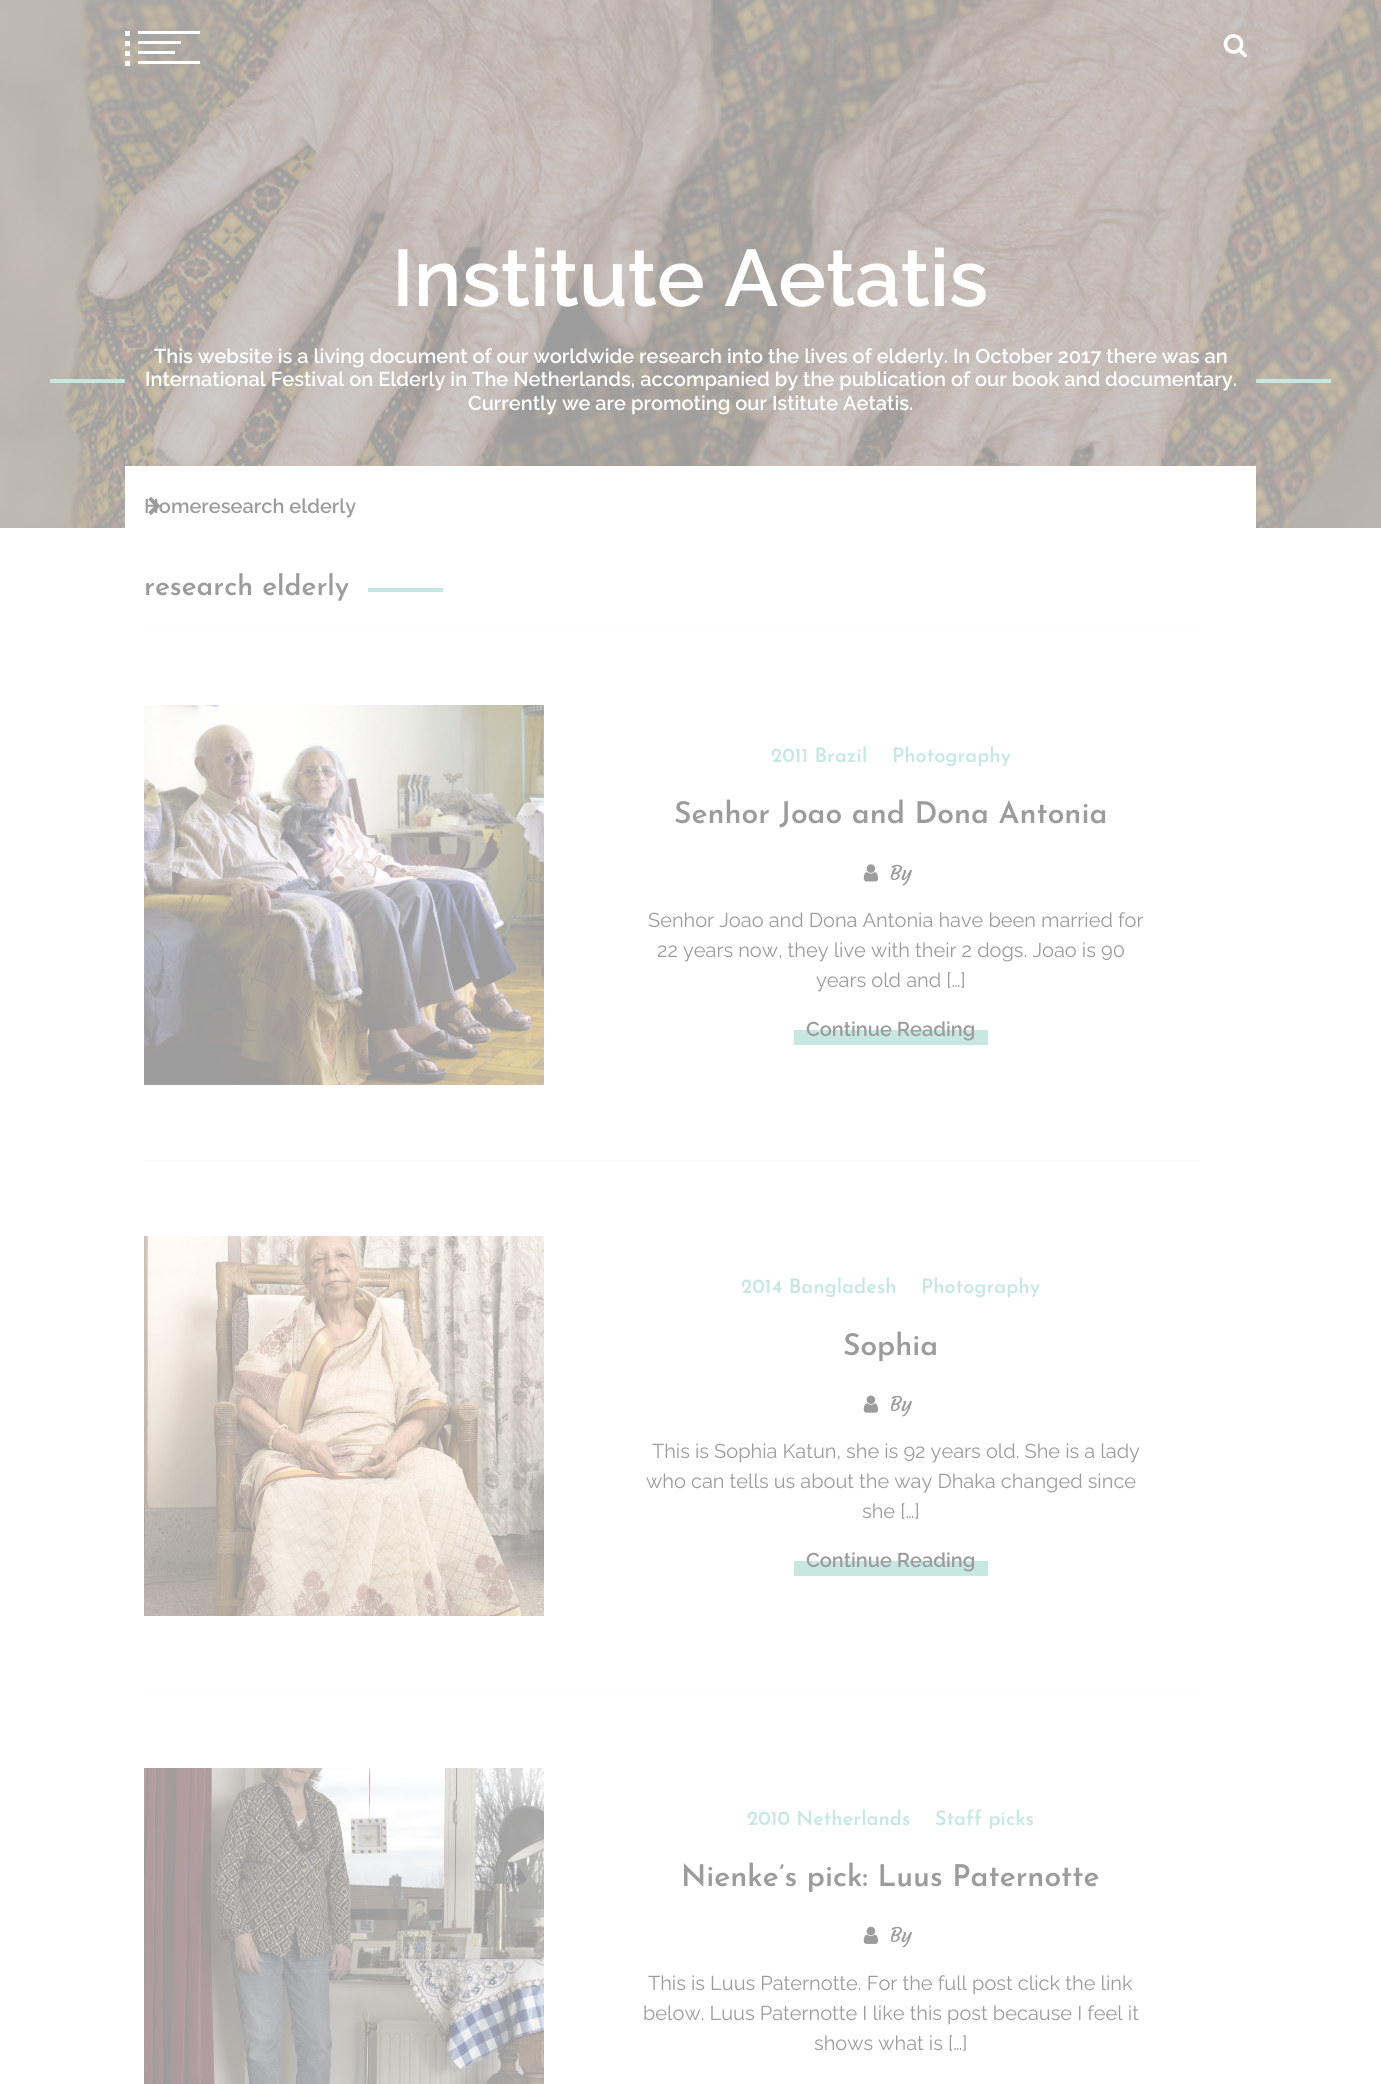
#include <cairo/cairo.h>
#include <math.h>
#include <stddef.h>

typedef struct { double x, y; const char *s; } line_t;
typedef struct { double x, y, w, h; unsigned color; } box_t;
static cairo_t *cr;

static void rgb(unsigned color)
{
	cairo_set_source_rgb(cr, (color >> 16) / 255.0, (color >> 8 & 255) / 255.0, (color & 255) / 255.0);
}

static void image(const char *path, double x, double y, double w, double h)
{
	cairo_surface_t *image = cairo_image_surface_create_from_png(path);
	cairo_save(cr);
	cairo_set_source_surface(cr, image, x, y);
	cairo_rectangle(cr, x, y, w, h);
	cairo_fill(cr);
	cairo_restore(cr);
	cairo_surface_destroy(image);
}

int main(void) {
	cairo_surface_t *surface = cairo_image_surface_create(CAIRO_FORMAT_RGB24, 1381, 2084);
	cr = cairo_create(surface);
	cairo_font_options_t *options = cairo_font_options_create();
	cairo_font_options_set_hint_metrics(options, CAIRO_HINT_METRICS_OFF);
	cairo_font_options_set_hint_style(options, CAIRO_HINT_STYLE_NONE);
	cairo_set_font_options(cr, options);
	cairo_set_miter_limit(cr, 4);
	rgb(0xffffff);
	cairo_paint(cr);
	image("img/1.png", 0, 0, 1381, 528);
	{
		static const box_t items[] = {
			{125, 31, 5, 5, 0xffffff},
			{138, 31, 62, 3, 0xffffff},
			{125, 41, 5, 5, 0xffffff},
			{138, 41, 43, 3, 0xffffff},
			{125, 51, 5, 5, 0xffffff},
			{138, 51, 37, 3, 0xffffff},
			{125, 61, 5, 5, 0xffffff},
			{138, 61, 62, 3, 0xffffff},
		};
		for (size_t i = 0; i < sizeof items / sizeof *items; i++) {
			rgb(items[i].color);
			cairo_rectangle(cr, items[i].x, items[i].y, items[i].w, items[i].h);
			cairo_fill(cr);
		}
	}
	image("img/2.png", 1223, 34, 24, 24);
	{
		static const box_t items[] = {
			{50, 379, 75, 4, 0xc7e7e1},
			{1256, 379, 75, 4, 0xc7e7e1},
			{125, 466, 1131, 62, 0xffffff},
			{368, 588, 75, 4, 0xc7e7e1},
			{144, 629, 1056, 1, 0xfafafa},
		};
		for (size_t i = 0; i < sizeof items / sizeof *items; i++) {
			rgb(items[i].color);
			cairo_rectangle(cr, items[i].x, items[i].y, items[i].w, items[i].h);
			cairo_fill(cr);
		}
	}
	image("img/4.png", 144, 705, 400, 380);
	image("img/5.png", 863, 864, 15, 18);
	rgb(0xc7e7e1);
	cairo_rectangle(cr, 794, 1030, 194, 15);
	cairo_fill(cr);
	rgb(0xfafafa);
	cairo_rectangle(cr, 144, 1160, 1056, 1);
	cairo_fill(cr);
	image("img/6.png", 144, 1236, 400, 380);
	image("img/7.png", 863, 1395, 15, 18);
	rgb(0xc7e7e1);
	cairo_rectangle(cr, 794, 1561, 194, 15);
	cairo_fill(cr);
	rgb(0xfafafa);
	cairo_rectangle(cr, 144, 1691, 1056, 1);
	cairo_fill(cr);
	image("img/8.png", 144, 1768, 400, 316);
	image("img/9.png", 863, 1926, 15, 18);
	cairo_select_font_face(cr, "Raleway SemiBold", CAIRO_FONT_SLANT_NORMAL, CAIRO_FONT_WEIGHT_NORMAL);
	cairo_set_font_size(cr, 80);
	rgb(0xffffff);
	cairo_move_to(cr, 392, 306);
	cairo_show_text(cr, "Institute Aetatis");
	cairo_set_font_size(cr, 20);
	{
		static const line_t items[] = {
			{154, 363, "This website is a living document of our worldwide research into the lives of elderly. In October 2017 there was an"},
			{145, 386, "International Festival on Elderly in The Netherlands, accompanied by the publication of our book and documentary."},
			{468, 410, "Currently we are promoting our Istitute Aetatis."},
		};
		for (size_t i = 0; i < sizeof items / sizeof *items; i++) {
			cairo_move_to(cr, items[i].x, items[i].y);
			cairo_show_text(cr, items[i].s);
		}
	}
	rgb(0x9c9c9c);
	cairo_move_to(cr, 144, 513);
	cairo_show_text(cr, "Homeresearch elderly");
	image("img/3.png", 148, 497, 12, 18);
	cairo_select_font_face(cr, "Josefin Sans SemiBold", CAIRO_FONT_SLANT_NORMAL, CAIRO_FONT_WEIGHT_NORMAL);
	cairo_set_font_size(cr, 28);
	cairo_move_to(cr, 144, 595);
	cairo_show_text(cr, "research elderly");
	cairo_set_font_size(cr, 20);
	rgb(0xc7e7e1);
	cairo_move_to(cr, 771, 762);
	cairo_show_text(cr, "2011 Brazil");
	cairo_move_to(cr, 892, 762);
	cairo_show_text(cr, "Photography");
	cairo_set_font_size(cr, 30);
	rgb(0x9c9c9c);
	cairo_move_to(cr, 674, 823);
	cairo_show_text(cr, "Senhor Joao and Dona Antonia");
	cairo_select_font_face(cr, "Courgette", CAIRO_FONT_SLANT_NORMAL, CAIRO_FONT_WEIGHT_NORMAL);
	cairo_set_font_size(cr, 20);
	cairo_move_to(cr, 890, 880);
	cairo_show_text(cr, "By");
	cairo_select_font_face(cr, "Raleway", CAIRO_FONT_SLANT_NORMAL, CAIRO_FONT_WEIGHT_NORMAL);
	{
		static const line_t items[] = {
			{648, 927, "Senhor Joao and Dona Antonia have been married for"},
			{657, 957, "22 years now, they live with their 2 dogs. Joao is 90"},
			{816, 987, "years old and […]"},
		};
		for (size_t i = 0; i < sizeof items / sizeof *items; i++) {
			cairo_move_to(cr, items[i].x, items[i].y);
			cairo_show_text(cr, items[i].s);
		}
	}
	cairo_select_font_face(cr, "Raleway SemiBold", CAIRO_FONT_SLANT_NORMAL, CAIRO_FONT_WEIGHT_NORMAL);
	cairo_move_to(cr, 806, 1036);
	cairo_show_text(cr, "Continue Reading");
	cairo_select_font_face(cr, "Josefin Sans SemiBold", CAIRO_FONT_SLANT_NORMAL, CAIRO_FONT_WEIGHT_NORMAL);
	rgb(0xc7e7e1);
	cairo_move_to(cr, 741, 1293);
	cairo_show_text(cr, "2014 Bangladesh");
	cairo_move_to(cr, 921, 1293);
	cairo_show_text(cr, "Photography");
	cairo_set_font_size(cr, 30);
	rgb(0x9c9c9c);
	cairo_move_to(cr, 843, 1355);
	cairo_show_text(cr, "Sophia");
	cairo_select_font_face(cr, "Courgette", CAIRO_FONT_SLANT_NORMAL, CAIRO_FONT_WEIGHT_NORMAL);
	cairo_set_font_size(cr, 20);
	cairo_move_to(cr, 890, 1411);
	cairo_show_text(cr, "By");
	cairo_select_font_face(cr, "Raleway", CAIRO_FONT_SLANT_NORMAL, CAIRO_FONT_WEIGHT_NORMAL);
	{
		static const line_t items[] = {
			{652, 1458, "This is Sophia Katun, she is 92 years old. She is a lady"},
			{646, 1488, "who can tells us about the way Dhaka changed since"},
			{862, 1518, "she […]"},
		};
		for (size_t i = 0; i < sizeof items / sizeof *items; i++) {
			cairo_move_to(cr, items[i].x, items[i].y);
			cairo_show_text(cr, items[i].s);
		}
	}
	cairo_select_font_face(cr, "Raleway SemiBold", CAIRO_FONT_SLANT_NORMAL, CAIRO_FONT_WEIGHT_NORMAL);
	cairo_move_to(cr, 806, 1567);
	cairo_show_text(cr, "Continue Reading");
	cairo_select_font_face(cr, "Josefin Sans SemiBold", CAIRO_FONT_SLANT_NORMAL, CAIRO_FONT_WEIGHT_NORMAL);
	rgb(0xc7e7e1);
	cairo_move_to(cr, 747, 1825);
	cairo_show_text(cr, "2010 Netherlands");
	cairo_move_to(cr, 935, 1825);
	cairo_show_text(cr, "Staff picks");
	cairo_set_font_size(cr, 30);
	rgb(0x9c9c9c);
	cairo_move_to(cr, 681, 1886);
	cairo_show_text(cr, "Nienke’s pick: Luus Paternotte");
	cairo_select_font_face(cr, "Courgette", CAIRO_FONT_SLANT_NORMAL, CAIRO_FONT_WEIGHT_NORMAL);
	cairo_set_font_size(cr, 20);
	cairo_move_to(cr, 890, 1942);
	cairo_show_text(cr, "By");
	cairo_select_font_face(cr, "Raleway", CAIRO_FONT_SLANT_NORMAL, CAIRO_FONT_WEIGHT_NORMAL);
	{
		static const line_t items[] = {
			{648, 1990, "This is Luus Paternotte. For the full post click the link"},
			{643, 2020, "below. Luus Paternotte I like this post because I feel it"},
			{814, 2050, "shows what is […]"},
		};
		for (size_t i = 0; i < sizeof items / sizeof *items; i++) {
			cairo_move_to(cr, items[i].x, items[i].y);
			cairo_show_text(cr, items[i].s);
		}
	}
	cairo_surface_write_to_png(surface, "page.png");
	cairo_font_options_destroy(options);
	cairo_destroy(cr);
	cairo_surface_destroy(surface);
	return 0;
}
